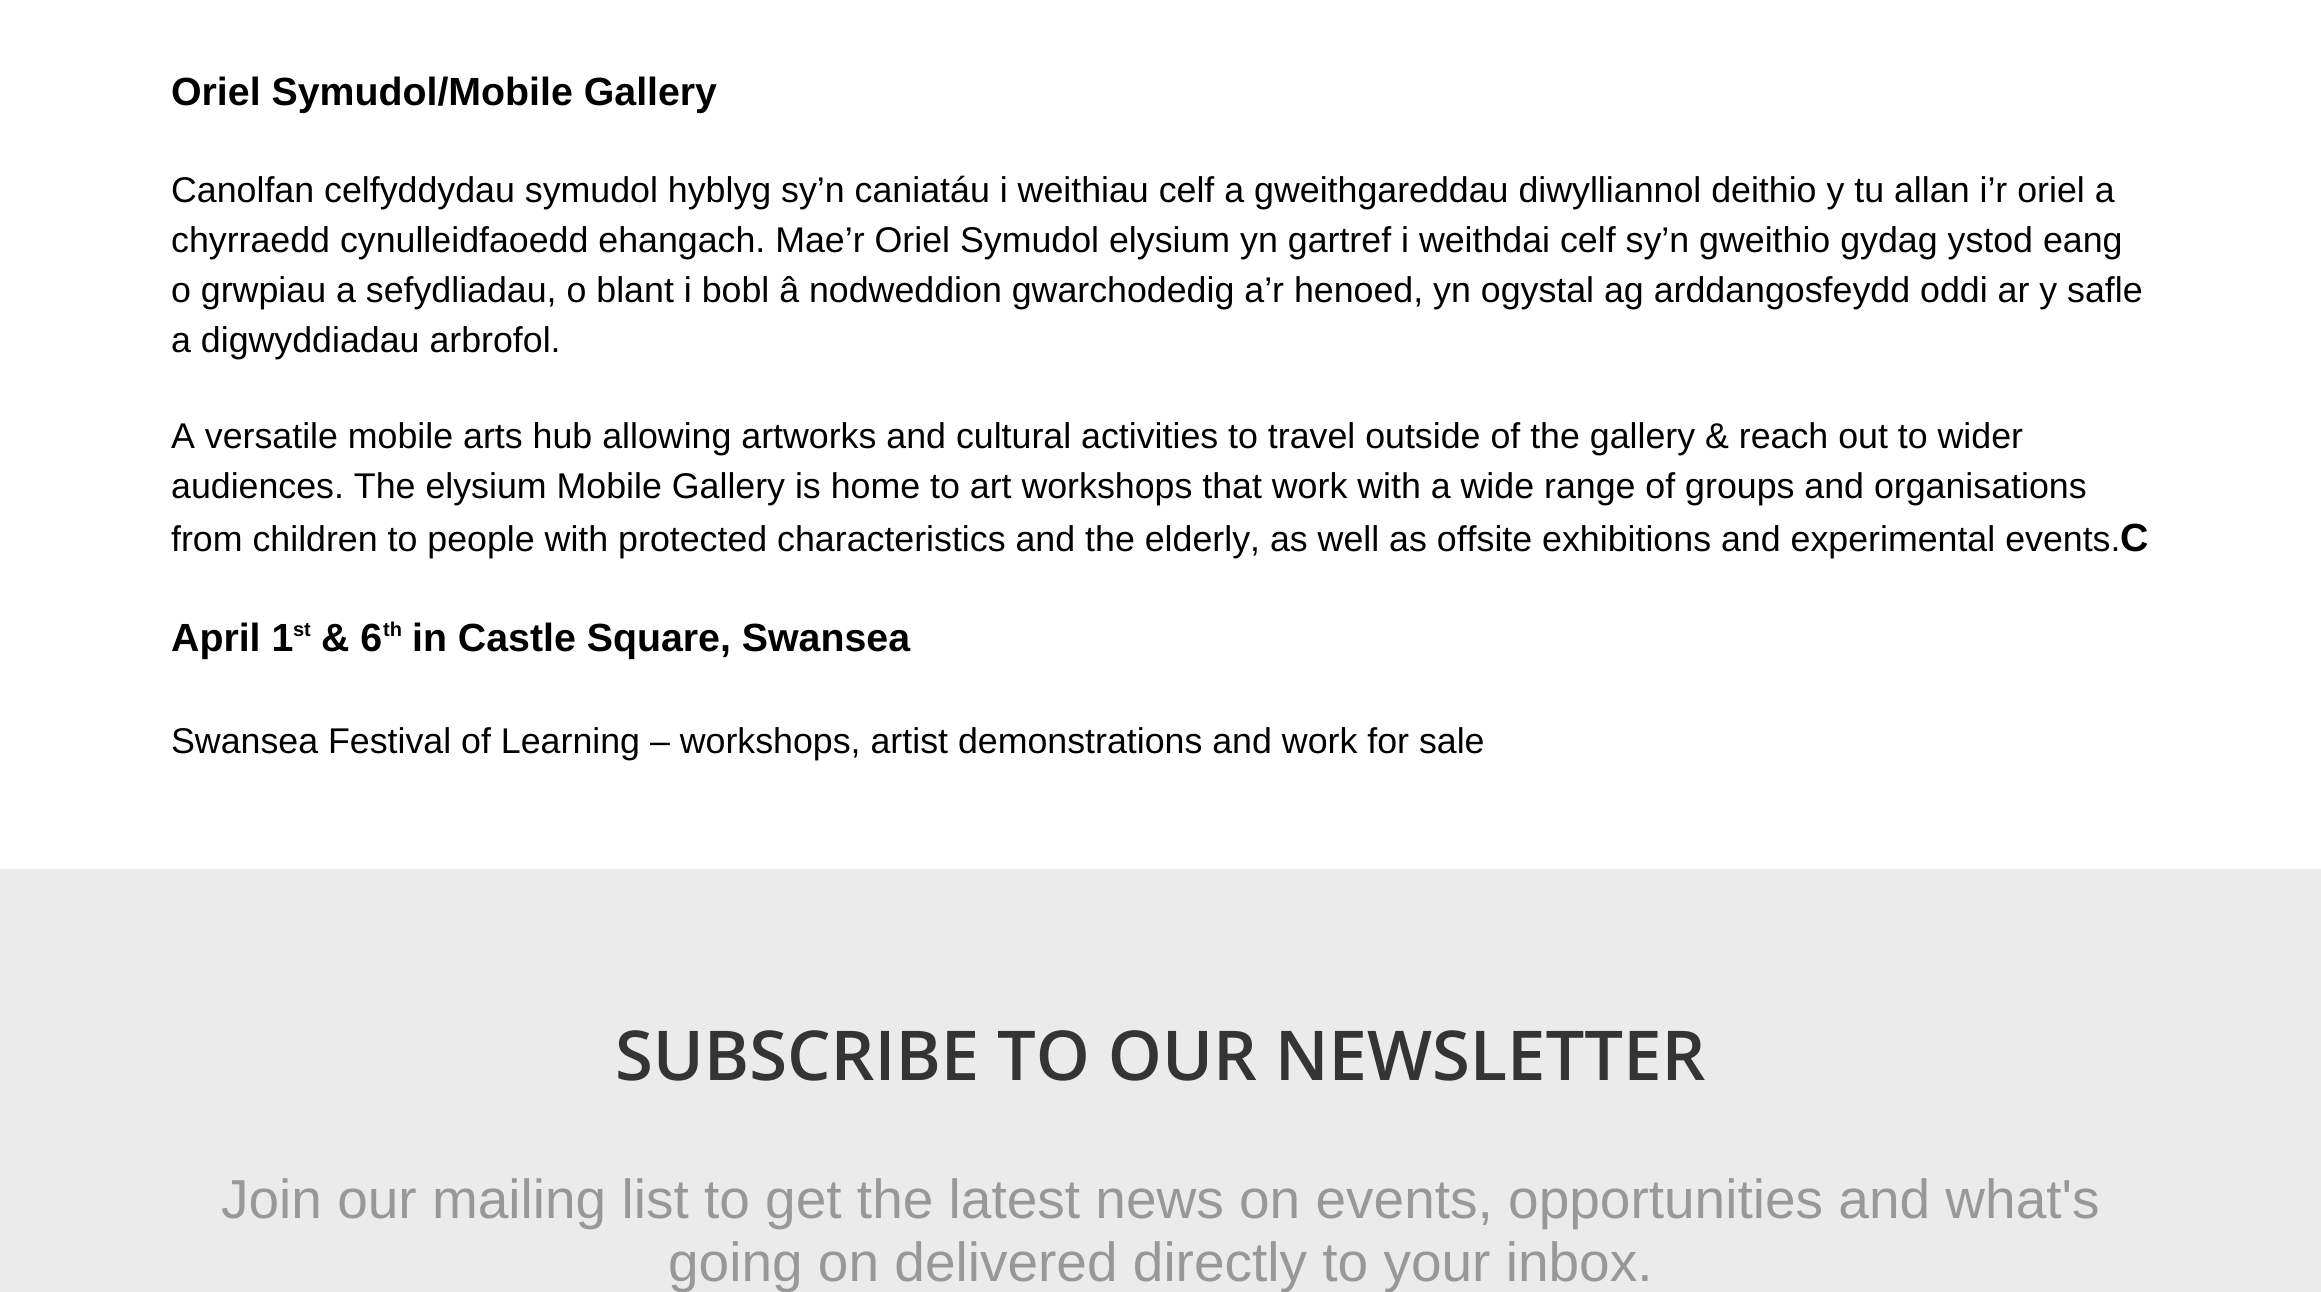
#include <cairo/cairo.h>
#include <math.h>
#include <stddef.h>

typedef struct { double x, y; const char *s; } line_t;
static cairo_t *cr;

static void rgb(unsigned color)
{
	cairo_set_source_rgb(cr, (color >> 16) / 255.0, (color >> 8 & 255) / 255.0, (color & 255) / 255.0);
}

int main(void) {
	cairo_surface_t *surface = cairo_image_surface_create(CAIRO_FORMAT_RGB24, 2321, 1292);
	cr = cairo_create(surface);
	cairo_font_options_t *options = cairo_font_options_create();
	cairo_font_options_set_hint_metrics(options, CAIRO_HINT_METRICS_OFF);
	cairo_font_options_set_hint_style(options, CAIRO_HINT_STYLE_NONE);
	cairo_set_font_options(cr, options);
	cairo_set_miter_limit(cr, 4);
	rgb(0xffffff);
	cairo_paint(cr);
	rgb(0xebebeb);
	cairo_rectangle(cr, 0, 869, 2321, 423);
	cairo_fill(cr);
	cairo_select_font_face(cr, "Liberation Sans", CAIRO_FONT_SLANT_NORMAL, CAIRO_FONT_WEIGHT_BOLD);
	cairo_set_font_size(cr, 39.3);
	rgb(0x000000);
	cairo_move_to(cr, 171, 105);
	cairo_show_text(cr, "Oriel Symudol/Mobile Gallery");
	cairo_select_font_face(cr, "Liberation Sans", CAIRO_FONT_SLANT_NORMAL, CAIRO_FONT_WEIGHT_NORMAL);
	cairo_set_font_size(cr, 35.75);
	{
		static const line_t items[] = {
			{171, 202, "Canolfan celfyddydau symudol hyblyg sy’n caniatáu i weithiau celf a gweithgareddau diwylliannol deithio y tu allan i’r oriel a"},
			{171, 252, "chyrraedd cynulleidfaoedd ehangach. Mae’r Oriel Symudol elysium yn gartref i weithdai celf sy’n gweithio gydag ystod eang"},
			{171, 302, "o grwpiau a sefydliadau, o blant i bobl â nodweddion gwarchodedig a’r henoed, yn ogystal ag arddangosfeydd oddi ar y safle"},
			{171, 352, "a digwyddiadau arbrofol."},
			{171, 448, "A versatile mobile arts hub allowing artworks and cultural activities to travel outside of the gallery & reach out to wider"},
			{171, 498, "audiences. The elysium Mobile Gallery is home to art workshops that work with a wide range of groups and organisations"},
			{171, 551, "from children to people with protected characteristics and the elderly, as well as offsite exhibitions and experimental events."},
		};
		for (size_t i = 0; i < sizeof items / sizeof *items; i++) {
			cairo_move_to(cr, items[i].x, items[i].y);
			cairo_show_text(cr, items[i].s);
		}
	}
	cairo_select_font_face(cr, "Liberation Sans", CAIRO_FONT_SLANT_NORMAL, CAIRO_FONT_WEIGHT_BOLD);
	cairo_set_font_size(cr, 39.3);
	cairo_move_to(cr, 2120, 551);
	cairo_show_text(cr, "C");
	cairo_move_to(cr, 171, 651);
	cairo_show_text(cr, "April 1");
	cairo_set_font_size(cr, 20);
	cairo_move_to(cr, 293, 636);
	cairo_show_text(cr, "st");
	cairo_set_font_size(cr, 39.3);
	cairo_move_to(cr, 321, 651);
	cairo_show_text(cr, "& 6");
	cairo_set_font_size(cr, 20);
	cairo_move_to(cr, 383, 636);
	cairo_show_text(cr, "th");
	cairo_set_font_size(cr, 39.3);
	cairo_move_to(cr, 412, 651);
	cairo_show_text(cr, "in Castle Square, Swansea");
	cairo_select_font_face(cr, "Liberation Sans", CAIRO_FONT_SLANT_NORMAL, CAIRO_FONT_WEIGHT_NORMAL);
	cairo_set_font_size(cr, 35.75);
	cairo_move_to(cr, 171, 753);
	cairo_show_text(cr, "Swansea Festival of Learning – workshops, artist demonstrations and work for sale");
	cairo_select_font_face(cr, "Open Sans SemiBold", CAIRO_FONT_SLANT_NORMAL, CAIRO_FONT_WEIGHT_NORMAL);
	cairo_set_font_size(cr, 68.75);
	rgb(0x343435);
	cairo_move_to(cr, 615, 1080);
	cairo_show_text(cr, "SUBSCRIBE TO OUR NEWSLETTER");
	cairo_select_font_face(cr, "Liberation Sans", CAIRO_FONT_SLANT_NORMAL, CAIRO_FONT_WEIGHT_NORMAL);
	cairo_set_font_size(cr, 55);
	rgb(0x989898);
	cairo_move_to(cr, 221, 1218);
	cairo_show_text(cr, "Join our mailing list to get the latest news on events, opportunities and what's");
	cairo_move_to(cr, 668, 1281);
	cairo_show_text(cr, "going on delivered directly to your inbox.");
	cairo_surface_write_to_png(surface, "page.png");
	cairo_font_options_destroy(options);
	cairo_destroy(cr);
	cairo_surface_destroy(surface);
	return 0;
}
